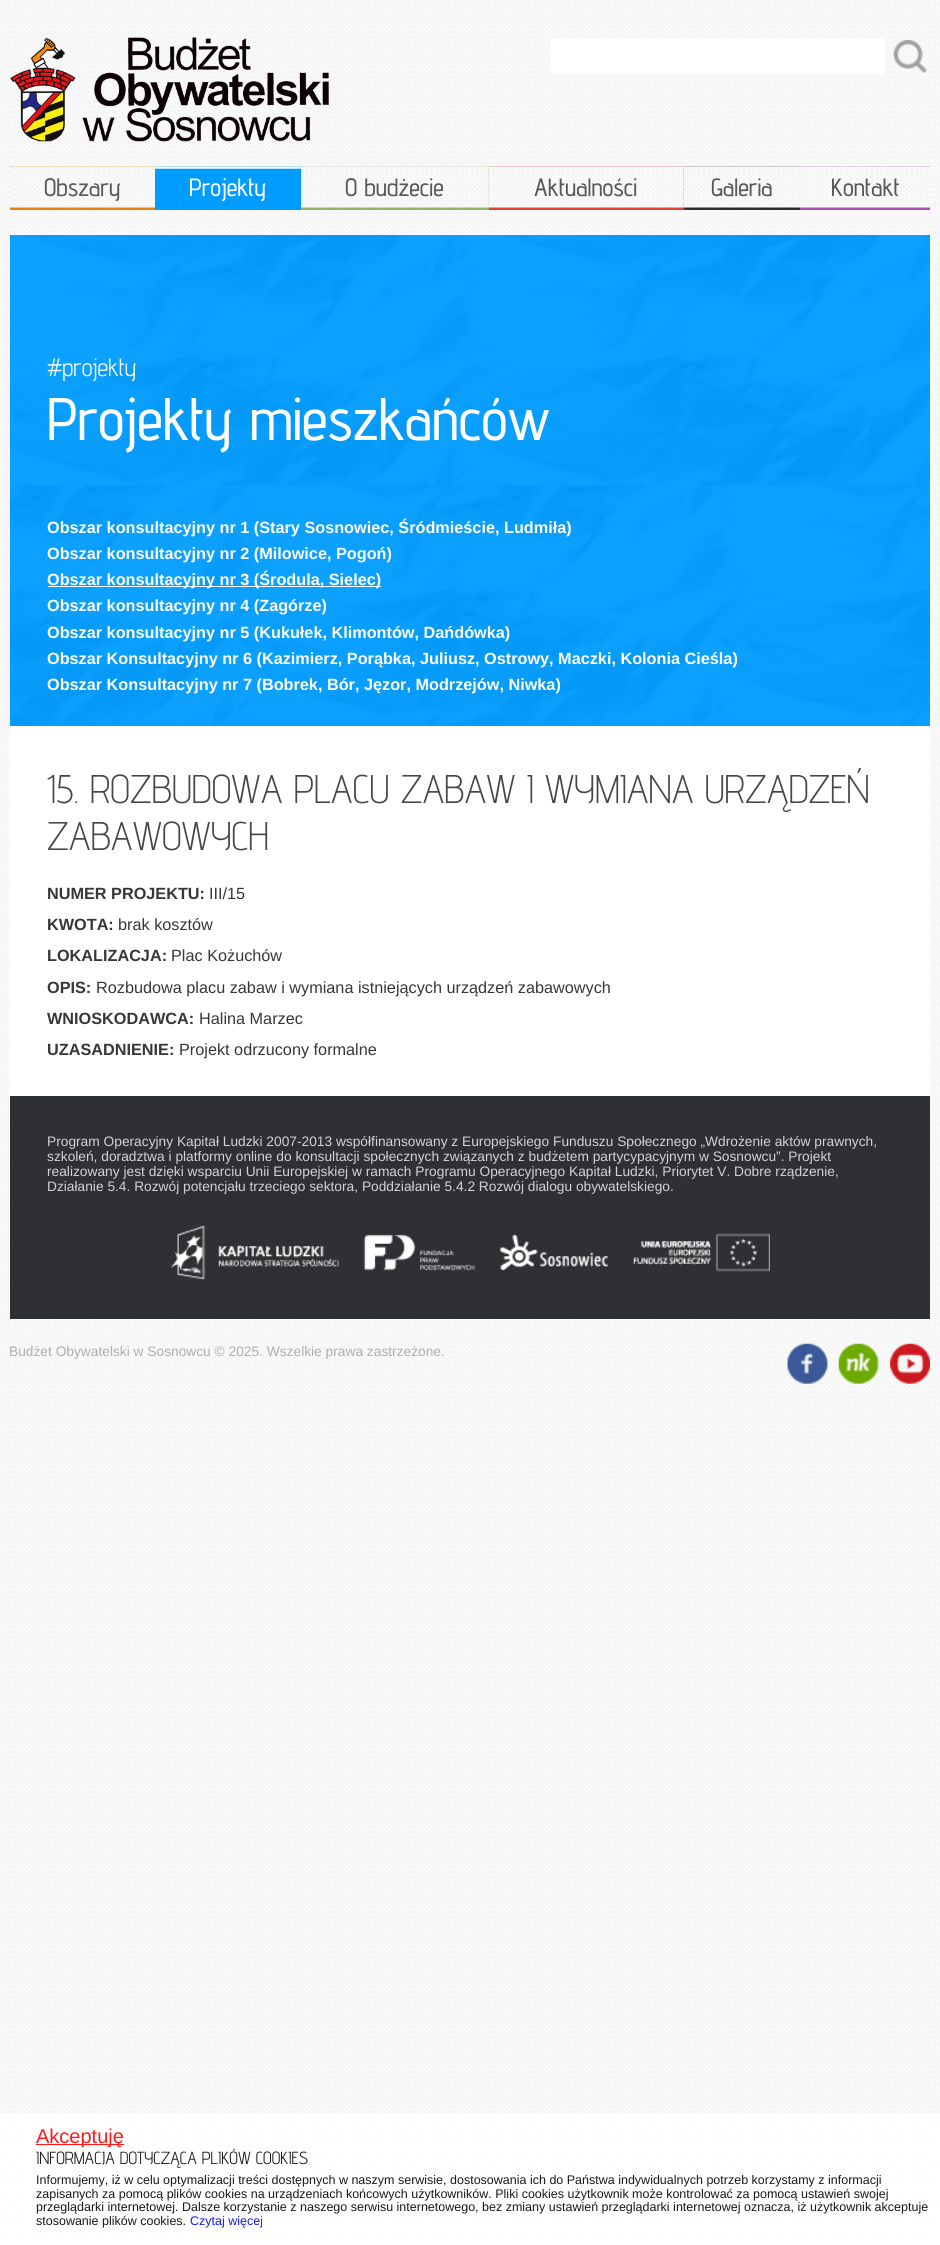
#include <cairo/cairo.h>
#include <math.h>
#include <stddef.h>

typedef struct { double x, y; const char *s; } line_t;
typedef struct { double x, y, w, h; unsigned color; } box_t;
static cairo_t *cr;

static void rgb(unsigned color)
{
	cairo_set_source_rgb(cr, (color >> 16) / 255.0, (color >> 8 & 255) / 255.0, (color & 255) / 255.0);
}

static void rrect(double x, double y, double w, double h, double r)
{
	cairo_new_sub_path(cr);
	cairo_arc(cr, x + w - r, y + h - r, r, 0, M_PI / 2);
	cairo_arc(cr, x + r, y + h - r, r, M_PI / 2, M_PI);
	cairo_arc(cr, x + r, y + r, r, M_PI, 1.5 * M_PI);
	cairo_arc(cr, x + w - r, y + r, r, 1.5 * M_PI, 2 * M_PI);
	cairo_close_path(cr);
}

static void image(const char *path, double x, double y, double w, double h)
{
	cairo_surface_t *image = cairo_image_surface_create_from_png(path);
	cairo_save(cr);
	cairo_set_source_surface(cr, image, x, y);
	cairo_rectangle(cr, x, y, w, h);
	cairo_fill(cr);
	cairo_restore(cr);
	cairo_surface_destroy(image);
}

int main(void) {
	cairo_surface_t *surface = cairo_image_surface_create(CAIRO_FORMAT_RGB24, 940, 2245);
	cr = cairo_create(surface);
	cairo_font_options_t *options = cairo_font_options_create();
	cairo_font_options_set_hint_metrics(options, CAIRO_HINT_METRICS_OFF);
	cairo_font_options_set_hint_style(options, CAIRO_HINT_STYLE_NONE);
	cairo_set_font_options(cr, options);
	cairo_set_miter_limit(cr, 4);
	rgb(0xffffff);
	cairo_paint(cr);
	image("img/1.png", 0, 0, 940, 2245);
	image("img/2.png", 10, 37, 319, 105);
	rgb(0xffffff);
	rrect(550.5, 38.5, 334, 35, 3.5);
	cairo_fill_preserve(cr);
	cairo_set_line_width(cr, 1);
	cairo_stroke(cr);
	image("img/3.png", 893, 40, 34, 33);
	rgb(0xe88110);
	cairo_rectangle(cr, 10, 166, 145, 44);
	cairo_fill(cr);
	image("img/4.png", 10, 166, 145, 42);
	rgb(0x009cff);
	cairo_rectangle(cr, 155, 166, 146, 44);
	cairo_fill(cr);
	image("img/5.png", 155, 166, 146, 3);
	rgb(0x99b563);
	cairo_rectangle(cr, 301, 166, 188, 44);
	cairo_fill(cr);
	image("img/6.png", 301, 166, 188, 42);
	rgb(0xe24239);
	cairo_rectangle(cr, 489, 166, 195, 44);
	cairo_fill(cr);
	image("img/7.png", 488, 166, 196, 42);
	rgb(0x2f3034);
	cairo_rectangle(cr, 684, 166, 116, 44);
	cairo_fill(cr);
	image("img/8.png", 683, 166, 117, 42);
	rgb(0xad4fab);
	cairo_rectangle(cr, 800, 166, 130, 44);
	cairo_fill(cr);
	image("img/9.png", 800, 166, 130, 42);
	rgb(0x009cff);
	cairo_rectangle(cr, 10, 235, 920, 491);
	cairo_fill(cr);
	image("img/10.png", 10, 235, 920, 250);
	image("img/11.png", 10, 485, 920, 241);
	{
		static const box_t items[] = {
			{48, 586, 333, 1, 0xffffff},
			{10, 726, 920, 370, 0xffffff},
			{10, 1096, 920, 223, 0x2f3033},
		};
		for (size_t i = 0; i < sizeof items / sizeof *items; i++) {
			rgb(items[i].color);
			cairo_rectangle(cr, items[i].x, items[i].y, items[i].w, items[i].h);
			cairo_fill(cr);
		}
	}
	image("img/12.png", 171, 1226, 599, 54);
	image("img/13.png", 787, 1343, 41, 41);
	image("img/14.png", 838, 1343, 41, 41);
	image("img/15.png", 890, 1343, 40, 41);
	cairo_set_source_rgba(cr, 1, 1, 1, 0.9);
	cairo_rectangle(cr, 0, 2113, 940, 132);
	cairo_fill(cr);
	rgb(0xff1919);
	cairo_rectangle(cr, 36, 2144, 88, 1);
	cairo_fill(cr);
	cairo_select_font_face(cr, "Advent Pro Medium", CAIRO_FONT_SLANT_NORMAL, CAIRO_FONT_WEIGHT_NORMAL);
	cairo_set_font_size(cr, 25);
	rgb(0x595959);
	cairo_move_to(cr, 44, 196);
	cairo_show_text(cr, "Obszary");
	rgb(0xffffff);
	cairo_move_to(cr, 189, 196);
	cairo_show_text(cr, "Projekty");
	rgb(0x595959);
	{
		static const line_t items[] = {
			{345, 196, "O budżecie"},
			{534, 196, "Aktualności"},
			{711, 196, "Galeria"},
			{831, 196, "Kontakt"},
		};
		for (size_t i = 0; i < sizeof items / sizeof *items; i++) {
			cairo_move_to(cr, items[i].x, items[i].y);
			cairo_show_text(cr, items[i].s);
		}
	}
	cairo_select_font_face(cr, "Advent Pro", CAIRO_FONT_SLANT_NORMAL, CAIRO_FONT_WEIGHT_NORMAL);
	rgb(0xffffff);
	cairo_move_to(cr, 47, 376);
	cairo_show_text(cr, "#projekty");
	cairo_select_font_face(cr, "Advent Pro Medium", CAIRO_FONT_SLANT_NORMAL, CAIRO_FONT_WEIGHT_NORMAL);
	cairo_set_font_size(cr, 60);
	cairo_move_to(cr, 47, 440);
	cairo_show_text(cr, "Projekty mieszkańców");
	cairo_select_font_face(cr, "Liberation Sans", CAIRO_FONT_SLANT_NORMAL, CAIRO_FONT_WEIGHT_BOLD);
	cairo_set_font_size(cr, 16.25);
	{
		static const line_t items[] = {
			{47, 533, "Obszar konsultacyjny nr 1 (Stary Sosnowiec, Śródmieście, Ludmiła)"},
			{47, 559, "Obszar konsultacyjny nr 2 (Milowice, Pogoń)"},
			{47, 585, "Obszar konsultacyjny nr 3 (Środula, Sielec)"},
			{47, 611, "Obszar konsultacyjny nr 4 (Zagórze)"},
			{47, 638, "Obszar konsultacyjny nr 5 (Kukułek, Klimontów, Dańdówka)"},
			{47, 664, "Obszar Konsultacyjny nr 6 (Kazimierz, Porąbka, Juliusz, Ostrowy, Maczki, Kolonia Cieśla)"},
			{47, 690, "Obszar Konsultacyjny nr 7 (Bobrek, Bór, Jęzor, Modrzejów, Niwka)"},
		};
		for (size_t i = 0; i < sizeof items / sizeof *items; i++) {
			cairo_move_to(cr, items[i].x, items[i].y);
			cairo_show_text(cr, items[i].s);
		}
	}
	cairo_select_font_face(cr, "Advent Pro Light", CAIRO_FONT_SLANT_NORMAL, CAIRO_FONT_WEIGHT_NORMAL);
	cairo_set_font_size(cr, 40);
	rgb(0x474747);
	cairo_move_to(cr, 47, 803);
	cairo_show_text(cr, "15. ROZBUDOWA PLACU ZABAW I WYMIANA URZĄDZEŃ");
	cairo_move_to(cr, 47, 850);
	cairo_show_text(cr, "ZABAWOWYCH");
	cairo_select_font_face(cr, "Liberation Sans", CAIRO_FONT_SLANT_NORMAL, CAIRO_FONT_WEIGHT_BOLD);
	cairo_set_font_size(cr, 16.25);
	rgb(0x373737);
	cairo_move_to(cr, 47, 899);
	cairo_show_text(cr, "NUMER PROJEKTU:");
	cairo_select_font_face(cr, "Liberation Sans", CAIRO_FONT_SLANT_NORMAL, CAIRO_FONT_WEIGHT_NORMAL);
	cairo_move_to(cr, 209, 899);
	cairo_show_text(cr, "III/15");
	cairo_select_font_face(cr, "Liberation Sans", CAIRO_FONT_SLANT_NORMAL, CAIRO_FONT_WEIGHT_BOLD);
	cairo_move_to(cr, 47, 930);
	cairo_show_text(cr, "KWOTA:");
	cairo_select_font_face(cr, "Liberation Sans", CAIRO_FONT_SLANT_NORMAL, CAIRO_FONT_WEIGHT_NORMAL);
	cairo_move_to(cr, 118, 930);
	cairo_show_text(cr, "brak kosztów");
	cairo_select_font_face(cr, "Liberation Sans", CAIRO_FONT_SLANT_NORMAL, CAIRO_FONT_WEIGHT_BOLD);
	cairo_move_to(cr, 47, 961);
	cairo_show_text(cr, "LOKALIZACJA:");
	cairo_select_font_face(cr, "Liberation Sans", CAIRO_FONT_SLANT_NORMAL, CAIRO_FONT_WEIGHT_NORMAL);
	cairo_move_to(cr, 171, 961);
	cairo_show_text(cr, "Plac Kożuchów");
	cairo_select_font_face(cr, "Liberation Sans", CAIRO_FONT_SLANT_NORMAL, CAIRO_FONT_WEIGHT_BOLD);
	cairo_move_to(cr, 47, 993);
	cairo_show_text(cr, "OPIS:");
	cairo_select_font_face(cr, "Liberation Sans", CAIRO_FONT_SLANT_NORMAL, CAIRO_FONT_WEIGHT_NORMAL);
	cairo_move_to(cr, 96, 993);
	cairo_show_text(cr, "Rozbudowa placu zabaw i wymiana istniejących urządzeń zabawowych");
	cairo_select_font_face(cr, "Liberation Sans", CAIRO_FONT_SLANT_NORMAL, CAIRO_FONT_WEIGHT_BOLD);
	cairo_move_to(cr, 47, 1024);
	cairo_show_text(cr, "WNIOSKODAWCA:");
	cairo_select_font_face(cr, "Liberation Sans", CAIRO_FONT_SLANT_NORMAL, CAIRO_FONT_WEIGHT_NORMAL);
	cairo_move_to(cr, 199, 1024);
	cairo_show_text(cr, "Halina Marzec");
	cairo_select_font_face(cr, "Liberation Sans", CAIRO_FONT_SLANT_NORMAL, CAIRO_FONT_WEIGHT_BOLD);
	cairo_move_to(cr, 47, 1055);
	cairo_show_text(cr, "UZASADNIENIE:");
	cairo_select_font_face(cr, "Liberation Sans", CAIRO_FONT_SLANT_NORMAL, CAIRO_FONT_WEIGHT_NORMAL);
	cairo_move_to(cr, 179, 1055);
	cairo_show_text(cr, "Projekt odrzucony formalne");
	cairo_set_font_size(cr, 13.75);
	rgb(0xd3d3d3);
	{
		static const line_t items[] = {
			{47, 1146, "Program Operacyjny Kapitał Ludzki 2007-2013 współfinansowany z Europejskiego Funduszu Społecznego „Wdrożenie aktów prawnych,"},
			{47, 1161, "szkoleń, doradztwa i platformy online do konsultacji społecznych związanych z budżetem partycypacyjnym w Sosnowcu”. Projekt"},
			{47, 1176, "realizowany jest dzięki wsparciu Unii Europejskiej w ramach Programu Operacyjnego Kapitał Ludzki, Priorytet V. Dobre rządzenie,"},
			{47, 1191, "Działanie 5.4. Rozwój potencjału trzeciego sektora, Poddziałanie 5.4.2 Rozwój dialogu obywatelskiego."},
		};
		for (size_t i = 0; i < sizeof items / sizeof *items; i++) {
			cairo_move_to(cr, items[i].x, items[i].y);
			cairo_show_text(cr, items[i].s);
		}
	}
	rgb(0xaeaeae);
	cairo_move_to(cr, 9, 1356);
	cairo_show_text(cr, "Budżet Obywatelski w Sosnowcu © 2025. Wszelkie prawa zastrzeżone.");
	cairo_set_font_size(cr, 20);
	rgb(0xff1919);
	cairo_move_to(cr, 36, 2143);
	cairo_show_text(cr, "Akceptuję");
	cairo_select_font_face(cr, "Advent Pro", CAIRO_FONT_SLANT_NORMAL, CAIRO_FONT_WEIGHT_NORMAL);
	cairo_set_font_size(cr, 17.5);
	rgb(0x191919);
	cairo_move_to(cr, 36, 2164);
	cairo_show_text(cr, "INFORMACJA DOTYCZĄCA PLIKÓW COOKIES");
	cairo_select_font_face(cr, "Liberation Sans", CAIRO_FONT_SLANT_NORMAL, CAIRO_FONT_WEIGHT_NORMAL);
	cairo_set_font_size(cr, 12.5);
	{
		static const line_t items[] = {
			{36, 2184, "Informujemy, iż w celu optymalizacji treści dostępnych w naszym serwisie, dostosowania ich do Państwa indywidualnych potrzeb korzystamy z informacji"},
			{36, 2198, "zapisanych za pomocą plików cookies na urządzeniach końcowych użytkowników. Pliki cookies użytkownik może kontrolować za pomocą ustawień swojej"},
			{36, 2211, "przeglądarki internetowej. Dalsze korzystanie z naszego serwisu internetowego, bez zmiany ustawień przeglądarki internetowej oznacza, iż użytkownik akceptuje"},
			{36, 2225, "stosowanie plików cookies."},
		};
		for (size_t i = 0; i < sizeof items / sizeof *items; i++) {
			cairo_move_to(cr, items[i].x, items[i].y);
			cairo_show_text(cr, items[i].s);
		}
	}
	rgb(0x1919f0);
	cairo_move_to(cr, 190, 2225);
	cairo_show_text(cr, "Czytaj więcej");
	cairo_surface_write_to_png(surface, "page.png");
	cairo_font_options_destroy(options);
	cairo_destroy(cr);
	cairo_surface_destroy(surface);
	return 0;
}
